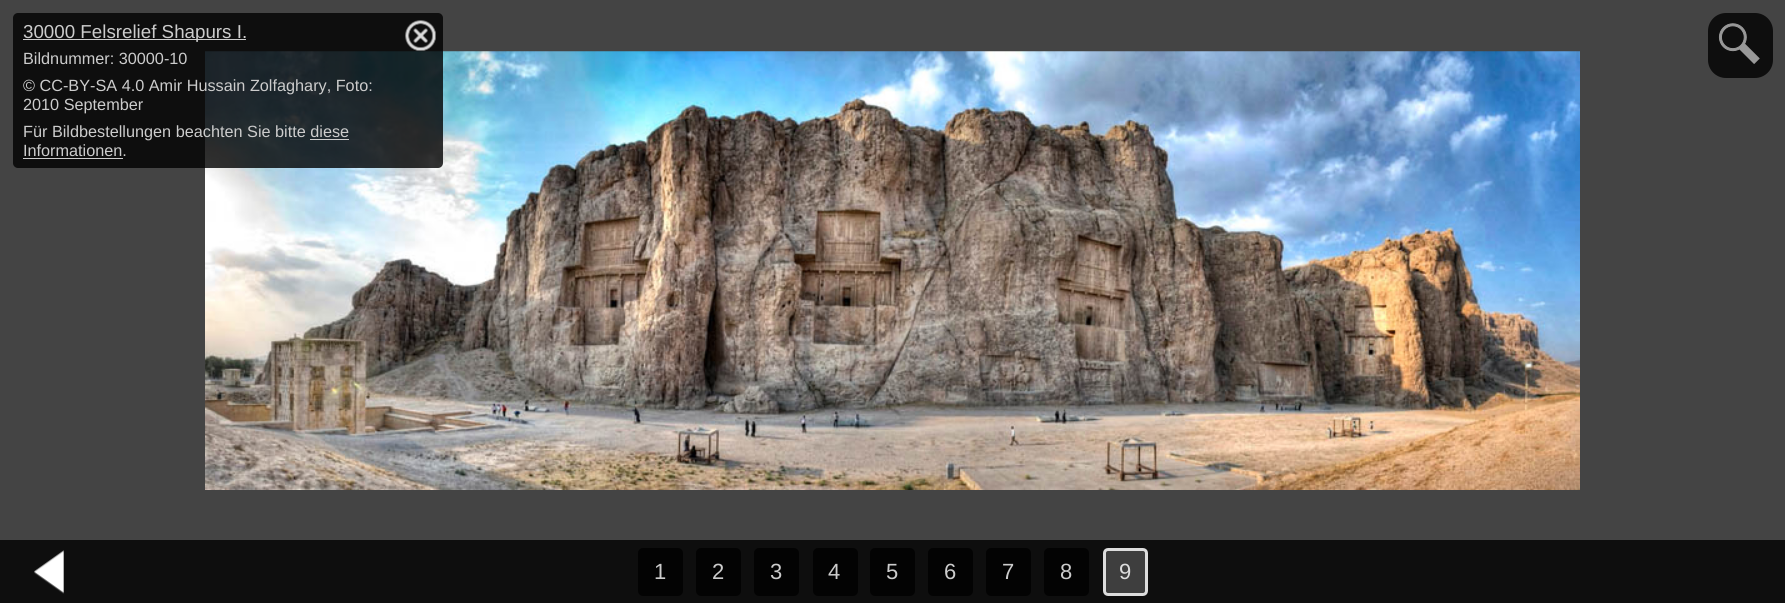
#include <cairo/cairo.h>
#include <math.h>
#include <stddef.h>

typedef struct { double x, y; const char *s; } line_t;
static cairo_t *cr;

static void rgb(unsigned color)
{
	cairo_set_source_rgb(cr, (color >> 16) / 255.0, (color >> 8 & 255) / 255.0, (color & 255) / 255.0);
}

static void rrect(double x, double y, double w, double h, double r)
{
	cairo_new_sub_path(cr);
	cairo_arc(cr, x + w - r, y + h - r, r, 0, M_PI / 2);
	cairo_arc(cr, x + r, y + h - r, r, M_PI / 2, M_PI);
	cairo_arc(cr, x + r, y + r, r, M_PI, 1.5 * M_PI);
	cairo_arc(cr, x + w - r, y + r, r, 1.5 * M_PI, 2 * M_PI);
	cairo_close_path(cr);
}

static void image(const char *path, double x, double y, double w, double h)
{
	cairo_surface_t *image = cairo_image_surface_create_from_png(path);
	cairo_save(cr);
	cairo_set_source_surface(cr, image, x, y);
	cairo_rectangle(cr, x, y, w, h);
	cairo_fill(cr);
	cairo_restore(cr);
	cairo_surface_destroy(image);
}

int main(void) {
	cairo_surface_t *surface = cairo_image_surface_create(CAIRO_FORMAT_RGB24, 1785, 603);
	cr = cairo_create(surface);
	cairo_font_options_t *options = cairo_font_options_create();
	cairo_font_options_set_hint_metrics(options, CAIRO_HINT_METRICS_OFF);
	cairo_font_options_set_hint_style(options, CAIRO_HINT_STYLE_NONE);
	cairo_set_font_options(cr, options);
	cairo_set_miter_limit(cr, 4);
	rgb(0x444444);
	cairo_paint(cr);
	image("img/2.png", 205, 51, 1375, 439);
	cairo_set_source_rgba(cr, 0, 0, 0, 0.8);
	rrect(13, 13, 430, 155, 5);
	cairo_fill(cr);
	rgb(0xcccccc);
	cairo_rectangle(cr, 23, 39, 223, 1);
	cairo_fill(cr);
	image("img/1.png", 405, 20, 31, 31);
	cairo_rectangle(cr, 310, 139, 39, 1);
	cairo_fill(cr);
	cairo_rectangle(cr, 23, 158, 100, 1);
	cairo_fill(cr);
	rgb(0x0e0e0e);
	rrect(1708, 13, 65, 65, 18);
	cairo_fill(cr);
	image("img/3.png", 1718, 23, 42, 41);
	cairo_rectangle(cr, 0, 540, 1785, 63);
	cairo_fill(cr);
	image("img/4.png", 34, 550, 30, 44);
	rgb(0x030303);
	rrect(638, 548, 45, 48, 5);
	cairo_fill(cr);
	rrect(696, 548, 45, 48, 5);
	cairo_fill(cr);
	rrect(754, 548, 45, 48, 5);
	cairo_fill(cr);
	rrect(813, 548, 45, 48, 5);
	cairo_fill(cr);
	rrect(870, 548, 45, 48, 5);
	cairo_fill(cr);
	rrect(928, 548, 45, 48, 5);
	cairo_fill(cr);
	rrect(986, 548, 45, 48, 5);
	cairo_fill(cr);
	rrect(1044, 548, 45, 48, 5);
	cairo_fill(cr);
	rgb(0x3e3e3e);
	rrect(1104.5, 549.5, 42, 45, 3.5);
	cairo_fill_preserve(cr);
	rgb(0xdddddd);
	cairo_set_line_width(cr, 3);
	cairo_stroke(cr);
	cairo_select_font_face(cr, "Liberation Sans", CAIRO_FONT_SLANT_NORMAL, CAIRO_FONT_WEIGHT_NORMAL);
	cairo_set_font_size(cr, 18.75);
	rgb(0xcccccc);
	cairo_move_to(cr, 23, 38);
	cairo_show_text(cr, "30000 Felsrelief Shapurs I.");
	cairo_set_font_size(cr, 16.25);
	{
		static const line_t items[] = {
			{23, 64, "Bildnummer: 30000-10"},
			{23, 91, "© CC-BY-SA 4.0 Amir Hussain Zolfaghary, Foto:"},
			{23, 110, "2010 September"},
			{23, 137, "Für Bildbestellungen beachten Sie bitte diese"},
			{23, 156, "Informationen."},
		};
		for (size_t i = 0; i < sizeof items / sizeof *items; i++) {
			cairo_move_to(cr, items[i].x, items[i].y);
			cairo_show_text(cr, items[i].s);
		}
	}
	cairo_set_font_size(cr, 22);
	{
		static const line_t items[] = {
			{654, 579, "1"},
			{712, 579, "2"},
			{770, 579, "3"},
			{828, 579, "4"},
			{886, 579, "5"},
			{944, 579, "6"},
			{1002, 579, "7"},
			{1060, 579, "8"},
		};
		for (size_t i = 0; i < sizeof items / sizeof *items; i++) {
			cairo_move_to(cr, items[i].x, items[i].y);
			cairo_show_text(cr, items[i].s);
		}
	}
	rgb(0xdddddd);
	cairo_move_to(cr, 1119, 579);
	cairo_show_text(cr, "9");
	cairo_surface_write_to_png(surface, "page.png");
	cairo_font_options_destroy(options);
	cairo_destroy(cr);
	cairo_surface_destroy(surface);
	return 0;
}
